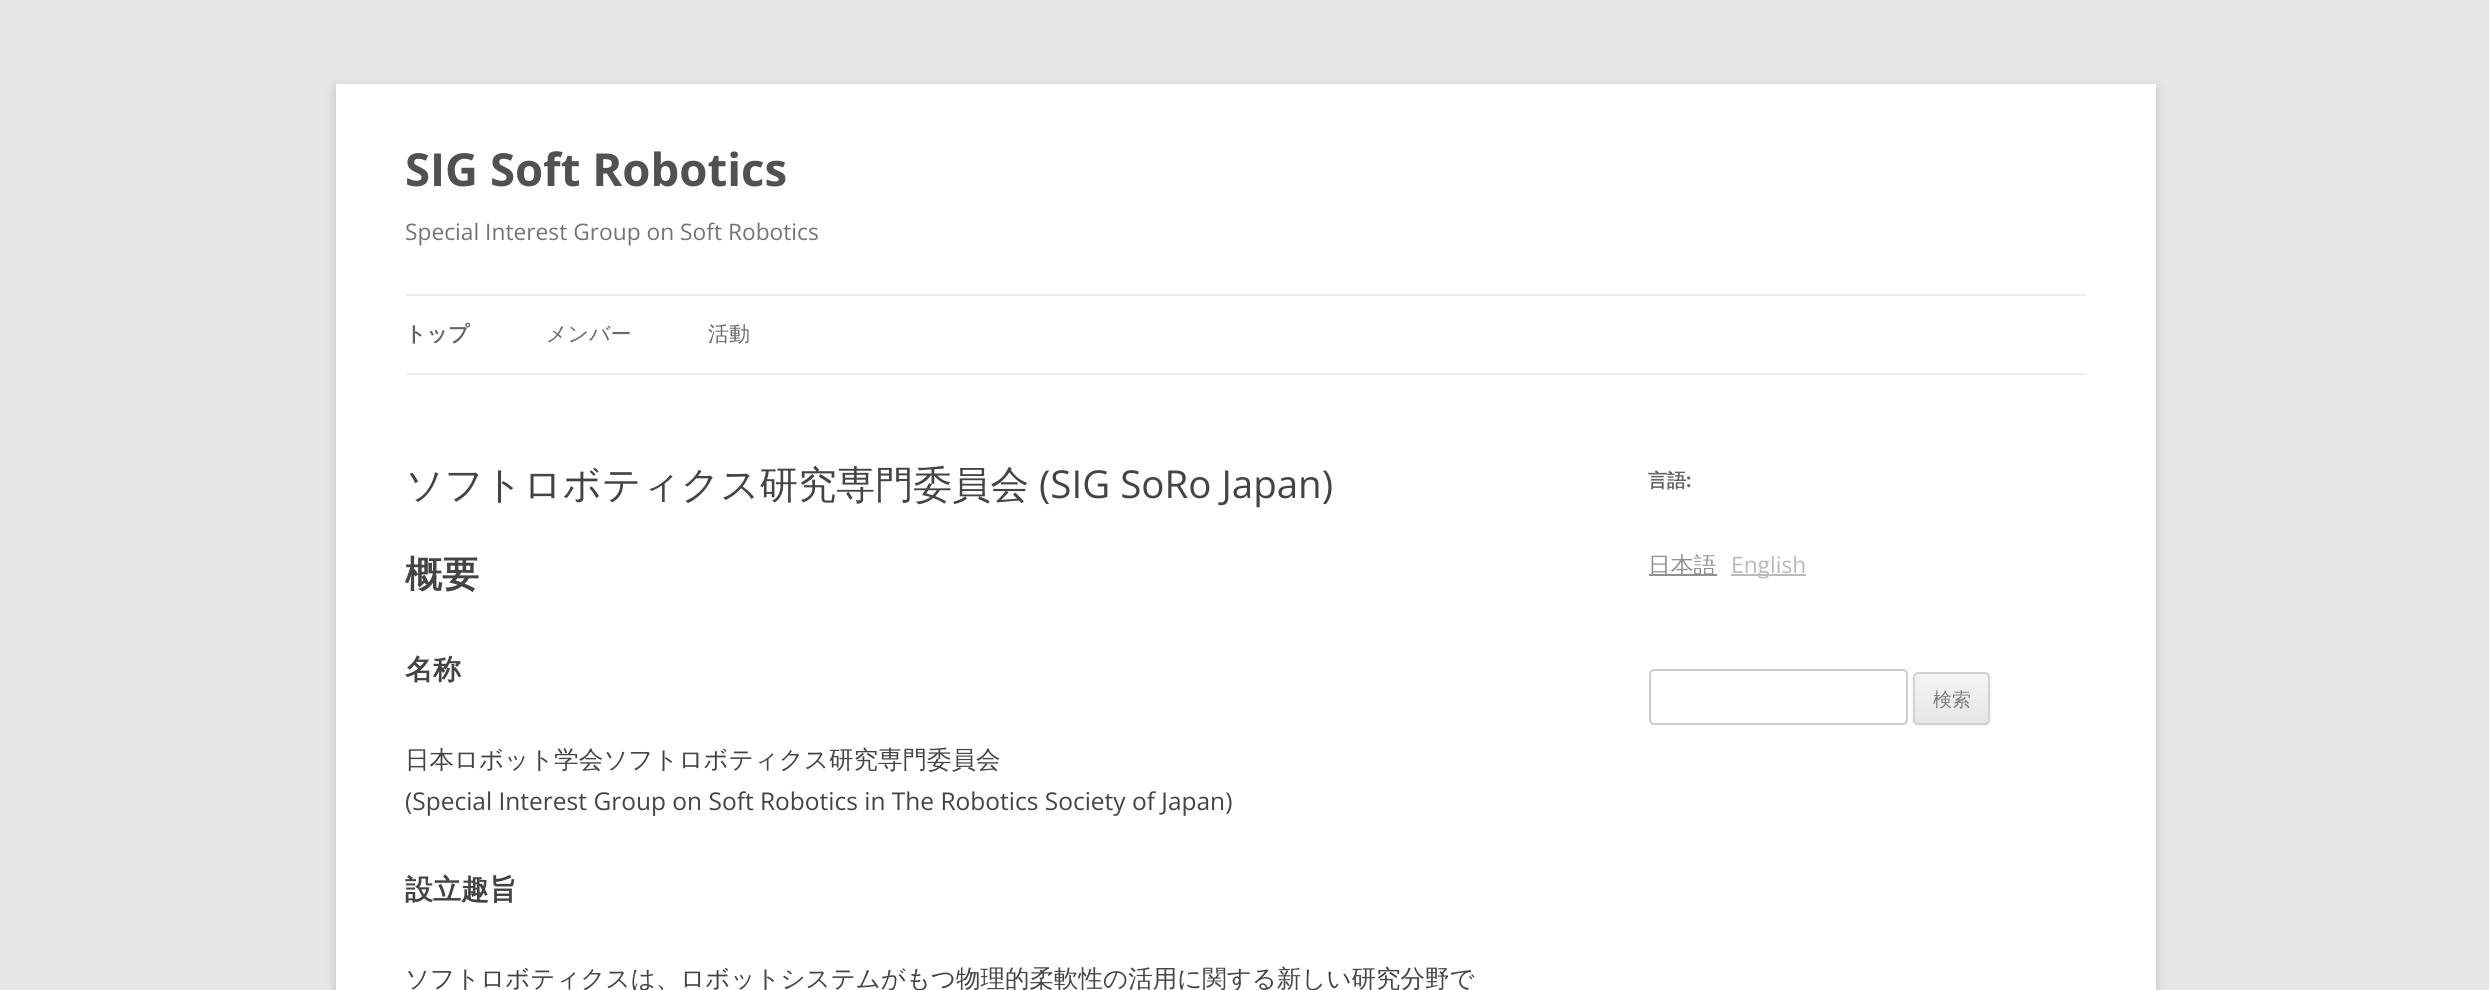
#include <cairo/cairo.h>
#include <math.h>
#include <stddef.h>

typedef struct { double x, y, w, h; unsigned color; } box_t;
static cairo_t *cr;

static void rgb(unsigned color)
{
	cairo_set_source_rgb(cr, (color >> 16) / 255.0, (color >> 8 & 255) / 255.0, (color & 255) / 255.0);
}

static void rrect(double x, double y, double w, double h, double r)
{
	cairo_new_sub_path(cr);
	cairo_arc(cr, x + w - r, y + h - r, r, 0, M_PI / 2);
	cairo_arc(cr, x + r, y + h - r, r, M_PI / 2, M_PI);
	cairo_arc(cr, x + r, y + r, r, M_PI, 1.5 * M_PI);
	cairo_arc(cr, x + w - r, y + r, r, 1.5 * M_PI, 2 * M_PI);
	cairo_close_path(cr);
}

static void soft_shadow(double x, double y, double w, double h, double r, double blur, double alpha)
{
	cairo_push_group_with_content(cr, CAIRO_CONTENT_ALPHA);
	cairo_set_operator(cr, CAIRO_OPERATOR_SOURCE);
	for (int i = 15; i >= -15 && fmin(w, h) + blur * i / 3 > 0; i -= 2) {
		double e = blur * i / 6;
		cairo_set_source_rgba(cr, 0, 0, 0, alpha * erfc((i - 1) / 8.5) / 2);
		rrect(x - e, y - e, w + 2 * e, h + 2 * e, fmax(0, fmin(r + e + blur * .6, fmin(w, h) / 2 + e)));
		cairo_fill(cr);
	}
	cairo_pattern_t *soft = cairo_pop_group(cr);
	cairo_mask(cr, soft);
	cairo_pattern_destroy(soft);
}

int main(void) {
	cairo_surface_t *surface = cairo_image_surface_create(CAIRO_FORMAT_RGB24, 2489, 990);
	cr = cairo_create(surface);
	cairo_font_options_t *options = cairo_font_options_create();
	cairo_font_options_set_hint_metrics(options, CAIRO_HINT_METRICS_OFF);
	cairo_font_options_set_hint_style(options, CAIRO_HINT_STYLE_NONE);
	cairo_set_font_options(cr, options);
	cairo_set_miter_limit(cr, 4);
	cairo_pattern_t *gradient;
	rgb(0xe6e6e6);
	cairo_paint(cr);
	rgb(0x646464);
	soft_shadow(336, 88, 1820, 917, 0, 5, 0.3);
	{
		static const box_t items[] = {
			{336, 84, 1820, 906, 0xffffff},
			{406, 294, 1680, 2, 0xededed},
			{406, 373, 1680, 2, 0xededed},
			{1649, 574, 68, 2, 0x919191},
			{1731, 574, 75, 2, 0xbababa},
		};
		for (size_t i = 0; i < sizeof items / sizeof *items; i++) {
			rgb(items[i].color);
			cairo_rectangle(cr, items[i].x, items[i].y, items[i].w, items[i].h);
			cairo_fill(cr);
		}
	}
	rrect(1650, 670, 257, 54, 4);
	rgb(0xcccccc);
	cairo_stroke(cr);
	rgb(0x404040);
	soft_shadow(1913, 674, 77, 52, 5, 2, 0.1);
	cairo_save(cr);
	rrect(1913, 672, 77, 53, 5);
	cairo_clip(cr);
	gradient = cairo_pattern_create_linear(1951, 674, 1951, 723);
	cairo_pattern_add_color_stop_rgba(gradient, 0, 0.957, 0.957, 0.957, 1);
	cairo_pattern_add_color_stop_rgba(gradient, 1, 0.902, 0.902, 0.902, 1);
	cairo_set_source(cr, gradient);
	cairo_pattern_destroy(gradient);
	cairo_rectangle(cr, 1913, 674, 77, 49);
	cairo_fill(cr);
	cairo_restore(cr);
	rrect(1914, 673, 75, 51, 4);
	rgb(0xd2d2d2);
	cairo_stroke(cr);
	cairo_select_font_face(cr, "Open Sans", CAIRO_FONT_SLANT_NORMAL, CAIRO_FONT_WEIGHT_BOLD);
	cairo_set_font_size(cr, 45.5);
	rgb(0x515151);
	cairo_move_to(cr, 405, 186);
	cairo_show_text(cr, "SIG Soft Robotics");
	cairo_select_font_face(cr, "Open Sans", CAIRO_FONT_SLANT_NORMAL, CAIRO_FONT_WEIGHT_NORMAL);
	cairo_set_font_size(cr, 22.75);
	rgb(0x757575);
	cairo_move_to(cr, 405, 240);
	cairo_show_text(cr, "Special Interest Group on Soft Robotics");
	cairo_select_font_face(cr, "WenQuanYi Zen Hei", CAIRO_FONT_SLANT_NORMAL, CAIRO_FONT_WEIGHT_BOLD);
	cairo_set_font_size(cr, 21);
	rgb(0x636363);
	cairo_move_to(cr, 405, 341);
	cairo_show_text(cr, "トップ");
	cairo_select_font_face(cr, "WenQuanYi Zen Hei Medium", CAIRO_FONT_SLANT_NORMAL, CAIRO_FONT_WEIGHT_NORMAL);
	rgb(0x6a6a6a);
	cairo_move_to(cr, 546, 341);
	cairo_show_text(cr, "メンバー");
	cairo_move_to(cr, 708, 341);
	cairo_show_text(cr, "活動");
	cairo_set_font_size(cr, 38.5);
	rgb(0x444444);
	cairo_move_to(cr, 405, 498);
	cairo_show_text(cr, "ソフトロボティクス研究専門委員会");
	cairo_select_font_face(cr, "Open Sans", CAIRO_FONT_SLANT_NORMAL, CAIRO_FONT_WEIGHT_NORMAL);
	cairo_move_to(cr, 1039, 498);
	cairo_show_text(cr, "(SIG SoRo Japan)");
	cairo_select_font_face(cr, "WenQuanYi Zen Hei", CAIRO_FONT_SLANT_NORMAL, CAIRO_FONT_WEIGHT_BOLD);
	cairo_set_font_size(cr, 37);
	cairo_move_to(cr, 405, 587);
	cairo_show_text(cr, "概要");
	cairo_set_font_size(cr, 28);
	cairo_move_to(cr, 405, 679);
	cairo_show_text(cr, "名称");
	cairo_select_font_face(cr, "WenQuanYi Zen Hei Medium", CAIRO_FONT_SLANT_NORMAL, CAIRO_FONT_WEIGHT_NORMAL);
	cairo_set_font_size(cr, 24.5);
	cairo_move_to(cr, 405, 768);
	cairo_show_text(cr, "日本ロボット学会ソフトロボティクス研究専門委員会");
	cairo_select_font_face(cr, "Open Sans", CAIRO_FONT_SLANT_NORMAL, CAIRO_FONT_WEIGHT_NORMAL);
	cairo_move_to(cr, 405, 810);
	cairo_show_text(cr, "(Special Interest Group on Soft Robotics in The Robotics Society of Japan)");
	cairo_select_font_face(cr, "WenQuanYi Zen Hei", CAIRO_FONT_SLANT_NORMAL, CAIRO_FONT_WEIGHT_BOLD);
	cairo_set_font_size(cr, 28);
	cairo_move_to(cr, 405, 899);
	cairo_show_text(cr, "設立趣旨");
	cairo_select_font_face(cr, "WenQuanYi Zen Hei Medium", CAIRO_FONT_SLANT_NORMAL, CAIRO_FONT_WEIGHT_NORMAL);
	cairo_set_font_size(cr, 24.5);
	cairo_move_to(cr, 405, 987);
	cairo_show_text(cr, "ソフトロボティクスは、ロボットシステムがもつ物理的柔軟性の活用に関する新しい研究分野で");
	cairo_select_font_face(cr, "WenQuanYi Zen Hei", CAIRO_FONT_SLANT_NORMAL, CAIRO_FONT_WEIGHT_BOLD);
	cairo_set_font_size(cr, 19);
	rgb(0x636363);
	cairo_move_to(cr, 1648, 487);
	cairo_show_text(cr, "言語");
	cairo_select_font_face(cr, "Open Sans", CAIRO_FONT_SLANT_NORMAL, CAIRO_FONT_WEIGHT_BOLD);
	cairo_move_to(cr, 1686, 487);
	cairo_show_text(cr, ":");
	cairo_select_font_face(cr, "WenQuanYi Zen Hei Medium", CAIRO_FONT_SLANT_NORMAL, CAIRO_FONT_WEIGHT_NORMAL);
	cairo_set_font_size(cr, 22.75);
	rgb(0x919191);
	cairo_move_to(cr, 1648, 573);
	cairo_show_text(cr, "日本語");
	cairo_select_font_face(cr, "Open Sans", CAIRO_FONT_SLANT_NORMAL, CAIRO_FONT_WEIGHT_NORMAL);
	rgb(0xbababa);
	cairo_move_to(cr, 1731, 573);
	cairo_show_text(cr, "English");
	cairo_select_font_face(cr, "WenQuanYi Zen Hei Medium", CAIRO_FONT_SLANT_NORMAL, CAIRO_FONT_WEIGHT_NORMAL);
	cairo_set_font_size(cr, 19);
	rgb(0x7c7c7c);
	cairo_move_to(cr, 1933, 706);
	cairo_show_text(cr, "検索");
	cairo_surface_write_to_png(surface, "page.png");
	cairo_font_options_destroy(options);
	cairo_destroy(cr);
	cairo_surface_destroy(surface);
	return 0;
}
